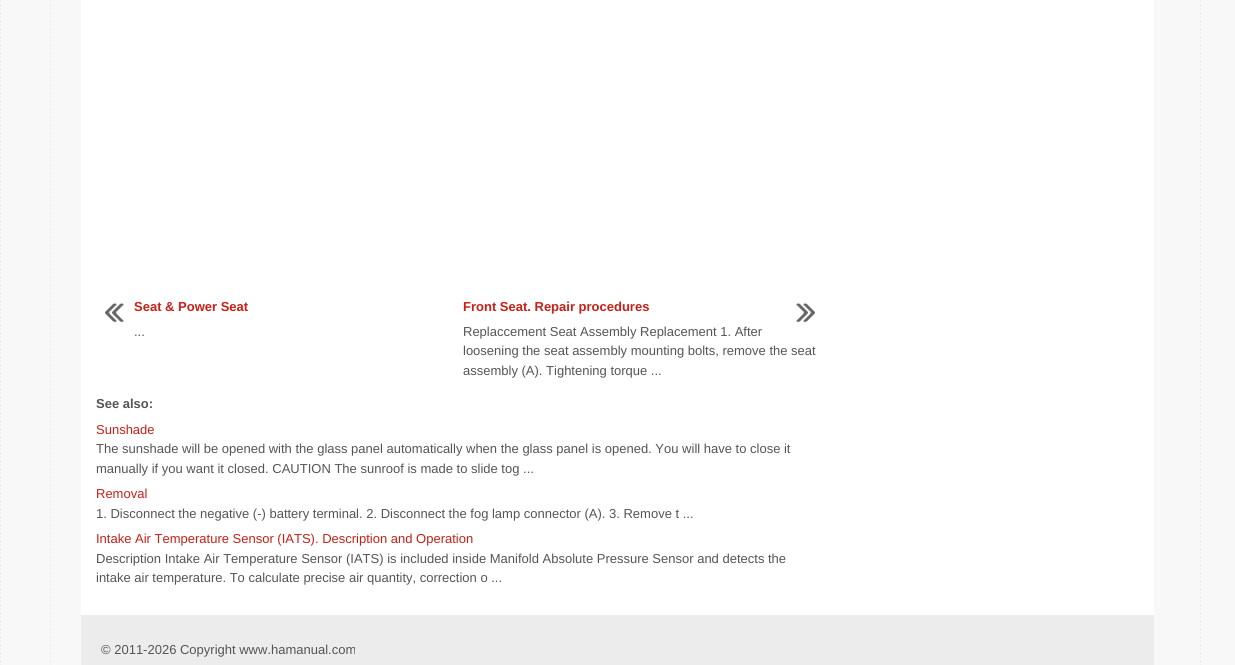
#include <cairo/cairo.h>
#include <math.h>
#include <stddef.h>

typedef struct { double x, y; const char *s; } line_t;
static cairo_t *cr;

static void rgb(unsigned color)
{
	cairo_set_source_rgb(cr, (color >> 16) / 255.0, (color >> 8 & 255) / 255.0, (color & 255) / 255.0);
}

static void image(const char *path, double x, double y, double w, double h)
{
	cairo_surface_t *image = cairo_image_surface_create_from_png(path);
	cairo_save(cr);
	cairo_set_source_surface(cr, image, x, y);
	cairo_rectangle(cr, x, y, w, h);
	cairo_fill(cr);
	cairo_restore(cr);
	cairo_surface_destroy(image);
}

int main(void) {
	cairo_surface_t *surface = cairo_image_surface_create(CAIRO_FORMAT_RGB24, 1235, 665);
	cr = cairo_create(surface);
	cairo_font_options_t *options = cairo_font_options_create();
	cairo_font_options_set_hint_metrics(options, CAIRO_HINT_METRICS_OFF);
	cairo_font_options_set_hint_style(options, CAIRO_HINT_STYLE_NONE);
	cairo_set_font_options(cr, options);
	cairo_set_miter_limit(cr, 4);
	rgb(0xffffff);
	cairo_paint(cr);
	image("img/1.png", 0, 0, 1235, 665);
	rgb(0xffffff);
	cairo_rectangle(cr, 81, 0, 1073, 615);
	cairo_fill(cr);
	image("img/2.png", 105, 303, 19, 19);
	image("img/3.png", 796, 303, 19, 19);
	rgb(0xececec);
	cairo_rectangle(cr, 81, 615, 1073, 50);
	cairo_fill(cr);
	cairo_select_font_face(cr, "Liberation Sans", CAIRO_FONT_SLANT_NORMAL, CAIRO_FONT_WEIGHT_BOLD);
	cairo_set_font_size(cr, 13);
	rgb(0xc72017);
	cairo_move_to(cr, 134, 311);
	cairo_show_text(cr, "Seat & Power Seat");
	cairo_select_font_face(cr, "Liberation Sans", CAIRO_FONT_SLANT_NORMAL, CAIRO_FONT_WEIGHT_NORMAL);
	rgb(0x555555);
	cairo_move_to(cr, 134, 336);
	cairo_show_text(cr, "...");
	cairo_select_font_face(cr, "Liberation Sans", CAIRO_FONT_SLANT_NORMAL, CAIRO_FONT_WEIGHT_BOLD);
	rgb(0xc72017);
	cairo_move_to(cr, 463, 311);
	cairo_show_text(cr, "Front Seat. Repair procedures");
	cairo_select_font_face(cr, "Liberation Sans", CAIRO_FONT_SLANT_NORMAL, CAIRO_FONT_WEIGHT_NORMAL);
	rgb(0x555555);
	{
		static const line_t items[] = {
			{463, 336, "Replaccement Seat Assembly Replacement 1. After"},
			{463, 355, "loosening the seat assembly mounting bolts, remove the seat"},
			{463, 375, "assembly (A). Tightening torque ..."},
		};
		for (size_t i = 0; i < sizeof items / sizeof *items; i++) {
			cairo_move_to(cr, items[i].x, items[i].y);
			cairo_show_text(cr, items[i].s);
		}
	}
	cairo_select_font_face(cr, "Liberation Sans", CAIRO_FONT_SLANT_NORMAL, CAIRO_FONT_WEIGHT_BOLD);
	cairo_move_to(cr, 96, 408);
	cairo_show_text(cr, "See also:");
	cairo_select_font_face(cr, "Liberation Sans", CAIRO_FONT_SLANT_NORMAL, CAIRO_FONT_WEIGHT_NORMAL);
	rgb(0xc72017);
	cairo_move_to(cr, 96, 434);
	cairo_show_text(cr, "Sunshade");
	rgb(0x555555);
	cairo_move_to(cr, 96, 453);
	cairo_show_text(cr, "The sunshade will be opened with the glass panel automatically when the glass panel is opened. You will have to close it");
	cairo_move_to(cr, 96, 473);
	cairo_show_text(cr, "manually if you want it closed. CAUTION The sunroof is made to slide tog ...");
	rgb(0xc72017);
	cairo_move_to(cr, 96, 498);
	cairo_show_text(cr, "Removal");
	rgb(0x555555);
	cairo_move_to(cr, 96, 518);
	cairo_show_text(cr, "1. Disconnect the negative (-) battery terminal. 2. Disconnect the fog lamp connector (A). 3. Remove t ...");
	rgb(0xc72017);
	cairo_move_to(cr, 96, 543);
	cairo_show_text(cr, "Intake Air Temperature Sensor (IATS). Description and Operation");
	rgb(0x555555);
	{
		static const line_t items[] = {
			{96, 563, "Description Intake Air Temperature Sensor (IATS) is included inside Manifold Absolute Pressure Sensor and detects the"},
			{96, 582, "intake air temperature. To calculate precise air quantity, correction o ..."},
			{101, 654, "© 2011-2026 Copyright www.hamanual.com"},
		};
		for (size_t i = 0; i < sizeof items / sizeof *items; i++) {
			cairo_move_to(cr, items[i].x, items[i].y);
			cairo_show_text(cr, items[i].s);
		}
	}
	cairo_surface_write_to_png(surface, "page.png");
	cairo_font_options_destroy(options);
	cairo_destroy(cr);
	cairo_surface_destroy(surface);
	return 0;
}
